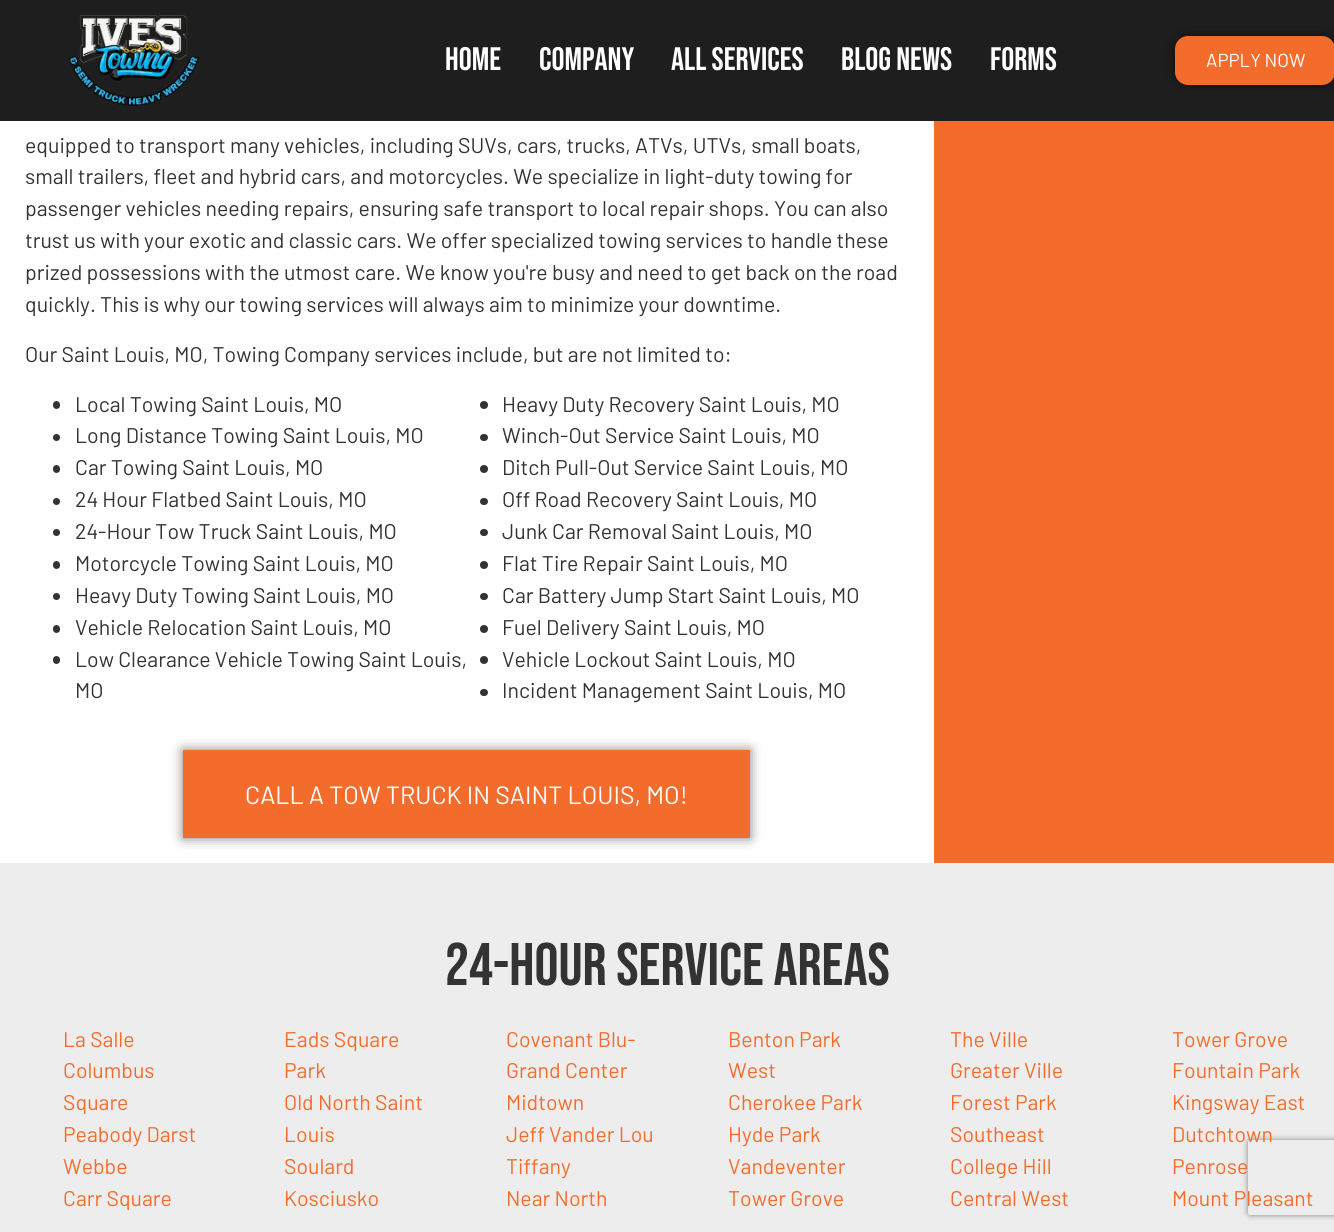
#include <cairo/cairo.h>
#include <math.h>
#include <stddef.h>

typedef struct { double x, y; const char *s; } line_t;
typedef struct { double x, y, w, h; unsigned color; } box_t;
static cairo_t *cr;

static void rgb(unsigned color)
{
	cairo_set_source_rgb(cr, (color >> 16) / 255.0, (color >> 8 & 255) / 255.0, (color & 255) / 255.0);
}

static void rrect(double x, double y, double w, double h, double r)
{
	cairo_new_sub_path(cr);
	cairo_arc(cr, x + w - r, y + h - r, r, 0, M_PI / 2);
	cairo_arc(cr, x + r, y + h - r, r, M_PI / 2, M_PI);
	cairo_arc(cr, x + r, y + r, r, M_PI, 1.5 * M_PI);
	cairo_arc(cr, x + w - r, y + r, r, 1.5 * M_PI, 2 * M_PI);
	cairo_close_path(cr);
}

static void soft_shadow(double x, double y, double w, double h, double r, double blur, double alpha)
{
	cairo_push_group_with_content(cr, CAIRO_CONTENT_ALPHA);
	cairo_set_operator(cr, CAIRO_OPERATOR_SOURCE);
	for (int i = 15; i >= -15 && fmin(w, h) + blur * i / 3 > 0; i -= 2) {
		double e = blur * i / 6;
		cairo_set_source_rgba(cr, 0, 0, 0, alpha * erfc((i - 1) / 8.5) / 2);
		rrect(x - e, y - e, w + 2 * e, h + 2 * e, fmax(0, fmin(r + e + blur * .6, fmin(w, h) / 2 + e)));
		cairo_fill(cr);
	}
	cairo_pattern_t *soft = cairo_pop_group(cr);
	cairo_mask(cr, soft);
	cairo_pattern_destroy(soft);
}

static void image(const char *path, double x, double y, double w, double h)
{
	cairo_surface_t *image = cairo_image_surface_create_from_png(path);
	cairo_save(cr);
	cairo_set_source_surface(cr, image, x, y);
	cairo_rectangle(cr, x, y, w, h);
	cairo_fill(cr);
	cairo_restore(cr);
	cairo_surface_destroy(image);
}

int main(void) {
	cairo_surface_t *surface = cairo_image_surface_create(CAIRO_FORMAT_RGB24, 1334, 1232);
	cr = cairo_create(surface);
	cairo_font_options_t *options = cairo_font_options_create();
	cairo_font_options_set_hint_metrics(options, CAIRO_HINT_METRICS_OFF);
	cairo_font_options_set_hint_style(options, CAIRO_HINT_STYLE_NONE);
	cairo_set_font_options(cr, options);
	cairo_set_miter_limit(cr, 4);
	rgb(0xffffff);
	cairo_paint(cr);
	rgb(0x1e1e1e);
	cairo_rectangle(cr, 0, 0, 1334, 121);
	cairo_fill(cr);
	image("img/1.png", 69, 15, 130, 91);
	rgb(0x000000);
	soft_shadow(1175, 36, 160, 49, 13, 6, 0.5);
	rgb(0xf46c2c);
	rrect(1175, 36, 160, 49, 13);
	cairo_fill(cr);
	rgb(0x333333);
	rrect(53, 401, 7, 8, 3.5);
	cairo_fill(cr);
	cairo_arc(cr, 484, 405, 4, 0, 2 * M_PI);
	cairo_fill(cr);
	cairo_arc(cr, 56.5, 437.5, 3.5, 0, 2 * M_PI);
	cairo_fill(cr);
	rrect(480, 434, 8, 7, 3.5);
	cairo_fill(cr);
	rrect(53, 465, 7, 8, 3.5);
	cairo_fill(cr);
	cairo_arc(cr, 484, 469, 4, 0, 2 * M_PI);
	cairo_fill(cr);
	cairo_arc(cr, 56.5, 501.5, 3.5, 0, 2 * M_PI);
	cairo_fill(cr);
	rrect(480, 498, 8, 7, 3.5);
	cairo_fill(cr);
	cairo_arc(cr, 56.5, 532.5, 3.5, 0, 2 * M_PI);
	cairo_fill(cr);
	rrect(480, 529, 8, 7, 3.5);
	cairo_fill(cr);
	rrect(53, 561, 7, 8, 3.5);
	cairo_fill(cr);
	cairo_arc(cr, 484, 565, 4, 0, 2 * M_PI);
	cairo_fill(cr);
	cairo_arc(cr, 56.5, 596.5, 3.5, 0, 2 * M_PI);
	cairo_fill(cr);
	rrect(480, 593, 8, 7, 3.5);
	cairo_fill(cr);
	rrect(53, 625, 7, 8, 3.5);
	cairo_fill(cr);
	cairo_arc(cr, 484, 629, 4, 0, 2 * M_PI);
	cairo_fill(cr);
	rrect(53, 656, 7, 8, 3.5);
	cairo_fill(cr);
	cairo_arc(cr, 484, 660, 4, 0, 2 * M_PI);
	cairo_fill(cr);
	rrect(480, 689, 8, 7, 3.5);
	cairo_fill(cr);
	rgb(0x000000);
	soft_shadow(183, 750, 567, 88, 0, 6, 0.5);
	{
		static const box_t items[] = {
			{183, 750, 567, 88, 0xf46c2c},
			{934, 121, 400, 742, 0xf46c2c},
			{0, 863, 1334, 369, 0xededed},
		};
		for (size_t i = 0; i < sizeof items / sizeof *items; i++) {
			rgb(items[i].color);
			cairo_rectangle(cr, items[i].x, items[i].y, items[i].w, items[i].h);
			cairo_fill(cr);
		}
	}
	cairo_save(cr);
	cairo_set_fill_rule(cr, CAIRO_FILL_RULE_EVEN_ODD);
	cairo_new_path(cr);
	cairo_move_to(cr, 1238, 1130);
	cairo_line_to(cr, 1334, 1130);
	cairo_line_to(cr, 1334, 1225);
	cairo_line_to(cr, 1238, 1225);
	cairo_close_path(cr);
	cairo_move_to(cr, 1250.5, 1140);
	cairo_line_to(cr, 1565.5, 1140);
	cairo_curve_to(cr, 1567, 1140, 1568, 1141, 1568, 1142.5);
	cairo_line_to(cr, 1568, 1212.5);
	cairo_curve_to(cr, 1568, 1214, 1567, 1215, 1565.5, 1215);
	cairo_line_to(cr, 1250.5, 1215);
	cairo_curve_to(cr, 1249, 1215, 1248, 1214, 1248, 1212.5);
	cairo_line_to(cr, 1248, 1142.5);
	cairo_curve_to(cr, 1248, 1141, 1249, 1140, 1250.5, 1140);
	cairo_close_path(cr);
	cairo_clip(cr);
	rgb(0x808080);
	soft_shadow(1248, 1140, 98, 75, 2.5, 3, 1);
	cairo_restore(cr);
	cairo_select_font_face(cr, "Bebas Neue", CAIRO_FONT_SLANT_NORMAL, CAIRO_FONT_WEIGHT_NORMAL);
	cairo_set_font_size(cr, 32.5);
	rgb(0xffffff);
	{
		static const line_t items[] = {
			{445, 70, "Home"},
			{539, 70, "Company"},
			{671, 70, "All Services"},
			{841, 70, "Blog News"},
			{990, 70, "Forms"},
		};
		for (size_t i = 0; i < sizeof items / sizeof *items; i++) {
			cairo_move_to(cr, items[i].x, items[i].y);
			cairo_show_text(cr, items[i].s);
		}
	}
	cairo_select_font_face(cr, "Barlow", CAIRO_FONT_SLANT_NORMAL, CAIRO_FONT_WEIGHT_NORMAL);
	cairo_set_font_size(cr, 18.75);
	cairo_move_to(cr, 1206, 67);
	cairo_show_text(cr, "APPLY NOW");
	cairo_set_font_size(cr, 21.25);
	rgb(0x333333);
	{
		static const line_t items[] = {
			{25, 153, "equipped to transport many vehicles, including SUVs, cars, trucks, ATVs, UTVs, small boats,"},
			{25, 184, "small trailers, fleet and hybrid cars, and motorcycles. We specialize in light-duty towing for"},
			{25, 216, "passenger vehicles needing repairs, ensuring safe transport to local repair shops. You can also"},
			{25, 248, "trust us with your exotic and classic cars. We offer specialized towing services to handle these"},
			{25, 280, "prized possessions with the utmost care. We know you're busy and need to get back on the road"},
			{25, 312, "quickly. This is why our towing services will always aim to minimize your downtime."},
			{25, 362, "Our Saint Louis, MO, Towing Company services include, but are not limited to:"},
			{75, 412, "Local Towing Saint Louis, MO"},
			{502, 412, "Heavy Duty Recovery Saint Louis, MO"},
			{75, 443, "Long Distance Towing Saint Louis, MO"},
			{502, 443, "Winch-Out Service Saint Louis, MO"},
			{75, 475, "Car Towing Saint Louis, MO"},
			{502, 475, "Ditch Pull-Out Service Saint Louis, MO"},
			{75, 507, "24 Hour Flatbed Saint Louis, MO"},
			{502, 507, "Off Road Recovery Saint Louis, MO"},
			{75, 539, "24-Hour Tow Truck Saint Louis, MO"},
			{502, 539, "Junk Car Removal Saint Louis, MO"},
			{75, 571, "Motorcycle Towing Saint Louis, MO"},
			{502, 571, "Flat Tire Repair Saint Louis, MO"},
			{75, 603, "Heavy Duty Towing Saint Louis, MO"},
			{502, 603, "Car Battery Jump Start Saint Louis, MO"},
			{75, 635, "Vehicle Relocation Saint Louis, MO"},
			{502, 635, "Fuel Delivery Saint Louis, MO"},
			{75, 667, "Low Clearance Vehicle Towing Saint Louis,"},
			{75, 698, "MO"},
			{502, 667, "Vehicle Lockout Saint Louis, MO"},
			{502, 698, "Incident Management Saint Louis, MO"},
		};
		for (size_t i = 0; i < sizeof items / sizeof *items; i++) {
			cairo_move_to(cr, items[i].x, items[i].y);
			cairo_show_text(cr, items[i].s);
		}
	}
	cairo_set_font_size(cr, 25);
	rgb(0xffffff);
	cairo_move_to(cr, 245, 804);
	cairo_show_text(cr, "CALL A TOW TRUCK IN SAINT LOUIS, MO!");
	cairo_select_font_face(cr, "Bebas Neue", CAIRO_FONT_SLANT_NORMAL, CAIRO_FONT_WEIGHT_NORMAL);
	cairo_set_font_size(cr, 60);
	rgb(0x333333);
	cairo_move_to(cr, 445, 985);
	cairo_show_text(cr, "24-Hour Service Areas");
	cairo_select_font_face(cr, "Barlow", CAIRO_FONT_SLANT_NORMAL, CAIRO_FONT_WEIGHT_NORMAL);
	cairo_set_font_size(cr, 21.25);
	rgb(0xf46c2c);
	{
		static const line_t items[] = {
			{63, 1047, "La Salle"},
			{284, 1047, "Eads Square"},
			{284, 1078, "Park"},
			{506, 1047, "Covenant Blu-"},
			{506, 1078, "Grand Center"},
			{728, 1047, "Benton Park"},
			{728, 1078, "West"},
			{950, 1047, "The Ville"},
			{1172, 1047, "Tower Grove"},
			{63, 1078, "Columbus"},
			{63, 1110, "Square"},
			{950, 1078, "Greater Ville"},
			{1172, 1078, "Fountain Park"},
			{284, 1110, "Old North Saint"},
			{284, 1142, "Louis"},
			{506, 1110, "Midtown"},
			{728, 1110, "Cherokee Park"},
			{950, 1110, "Forest Park"},
			{950, 1142, "Southeast"},
			{1172, 1110, "Kingsway East"},
			{63, 1142, "Peabody Darst"},
			{63, 1174, "Webbe"},
			{506, 1142, "Jeff Vander Lou"},
			{728, 1142, "Hyde Park"},
			{1172, 1142, "Dutchtown"},
			{284, 1174, "Soulard"},
			{506, 1174, "Tiffany"},
			{728, 1174, "Vandeventer"},
			{950, 1174, "College Hill"},
			{1172, 1174, "Penrose"},
			{63, 1206, "Carr Square"},
			{284, 1206, "Kosciusko"},
			{506, 1206, "Near North"},
			{728, 1206, "Tower Grove"},
			{950, 1206, "Central West"},
			{1172, 1206, "Mount Pleasant"},
		};
		for (size_t i = 0; i < sizeof items / sizeof *items; i++) {
			cairo_move_to(cr, items[i].x, items[i].y);
			cairo_show_text(cr, items[i].s);
		}
	}
	cairo_surface_write_to_png(surface, "page.png");
	cairo_font_options_destroy(options);
	cairo_destroy(cr);
	cairo_surface_destroy(surface);
	return 0;
}
